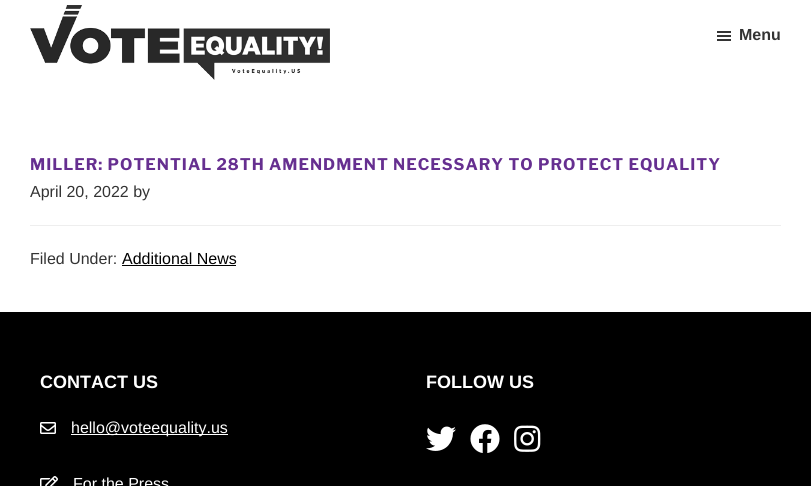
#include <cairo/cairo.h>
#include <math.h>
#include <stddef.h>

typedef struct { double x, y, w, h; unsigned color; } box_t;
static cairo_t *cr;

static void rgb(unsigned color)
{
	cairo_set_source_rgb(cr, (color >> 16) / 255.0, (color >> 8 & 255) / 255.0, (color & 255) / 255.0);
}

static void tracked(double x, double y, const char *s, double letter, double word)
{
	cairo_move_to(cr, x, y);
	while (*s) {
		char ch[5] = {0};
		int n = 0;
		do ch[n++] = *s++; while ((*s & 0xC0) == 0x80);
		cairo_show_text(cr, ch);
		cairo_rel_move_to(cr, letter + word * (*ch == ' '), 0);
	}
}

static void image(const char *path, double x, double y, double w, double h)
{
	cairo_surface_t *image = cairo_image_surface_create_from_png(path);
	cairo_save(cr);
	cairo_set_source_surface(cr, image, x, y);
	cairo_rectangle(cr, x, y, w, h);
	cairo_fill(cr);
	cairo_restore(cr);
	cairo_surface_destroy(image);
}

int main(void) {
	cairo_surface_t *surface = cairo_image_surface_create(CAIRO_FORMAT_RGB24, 811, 486);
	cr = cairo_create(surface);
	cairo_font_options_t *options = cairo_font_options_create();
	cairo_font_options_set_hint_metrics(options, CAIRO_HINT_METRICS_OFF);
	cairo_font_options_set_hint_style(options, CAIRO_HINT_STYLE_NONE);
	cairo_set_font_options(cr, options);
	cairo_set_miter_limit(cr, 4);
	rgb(0xffffff);
	cairo_paint(cr);
	image("img/1.png", 30, 5, 300, 75);
	image("img/2.png", 717, 31, 14, 10);
	{
		static const box_t items[] = {
			{30, 225, 751, 1, 0xeeeeee},
			{122, 265, 114, 1, 0x000000},
			{0, 312, 811, 174, 0x000000},
		};
		for (size_t i = 0; i < sizeof items / sizeof *items; i++) {
			rgb(items[i].color);
			cairo_rectangle(cr, items[i].x, items[i].y, items[i].w, items[i].h);
			cairo_fill(cr);
		}
	}
	image("img/3.png", 40, 422, 16, 12);
	rgb(0xffffff);
	cairo_rectangle(cr, 71, 434, 157, 1);
	cairo_fill(cr);
	image("img/4.png", 40, 476, 18, 10);
	image("img/5.png", 426, 426, 30, 25);
	image("img/6.png", 470, 424, 30, 29);
	image("img/7.png", 514, 425, 27, 27);
	cairo_select_font_face(cr, "Liberation Sans", CAIRO_FONT_SLANT_NORMAL, CAIRO_FONT_WEIGHT_BOLD);
	cairo_set_font_size(cr, 16);
	rgb(0x333333);
	cairo_move_to(cr, 739, 40);
	cairo_show_text(cr, "Menu");
	cairo_select_font_face(cr, "Libre Franklin", CAIRO_FONT_SLANT_NORMAL, CAIRO_FONT_WEIGHT_BOLD);
	rgb(0x662f90);
	tracked(30, 170, "MILLER: POTENTIAL 28TH AMENDMENT NECESSARY TO PROTECT EQUALITY", 1, 0);
	cairo_select_font_face(cr, "Liberation Sans", CAIRO_FONT_SLANT_NORMAL, CAIRO_FONT_WEIGHT_NORMAL);
	rgb(0x333333);
	cairo_move_to(cr, 30, 197);
	cairo_show_text(cr, "April 20, 2022 by");
	cairo_move_to(cr, 30, 264);
	cairo_show_text(cr, "Filed Under:");
	rgb(0x000000);
	cairo_move_to(cr, 122, 264);
	cairo_show_text(cr, "Additional News");
	cairo_select_font_face(cr, "Liberation Sans", CAIRO_FONT_SLANT_NORMAL, CAIRO_FONT_WEIGHT_BOLD);
	cairo_set_font_size(cr, 18);
	rgb(0xffffff);
	cairo_move_to(cr, 40, 388);
	cairo_show_text(cr, "CONTACT US");
	cairo_select_font_face(cr, "Liberation Sans", CAIRO_FONT_SLANT_NORMAL, CAIRO_FONT_WEIGHT_NORMAL);
	cairo_set_font_size(cr, 16);
	cairo_move_to(cr, 71, 433);
	cairo_show_text(cr, "hello@voteequality.us");
	cairo_move_to(cr, 73, 489);
	cairo_show_text(cr, "For the Press");
	cairo_select_font_face(cr, "Liberation Sans", CAIRO_FONT_SLANT_NORMAL, CAIRO_FONT_WEIGHT_BOLD);
	cairo_set_font_size(cr, 18);
	cairo_move_to(cr, 426, 388);
	cairo_show_text(cr, "FOLLOW US");
	cairo_surface_write_to_png(surface, "page.png");
	cairo_font_options_destroy(options);
	cairo_destroy(cr);
	cairo_surface_destroy(surface);
	return 0;
}
